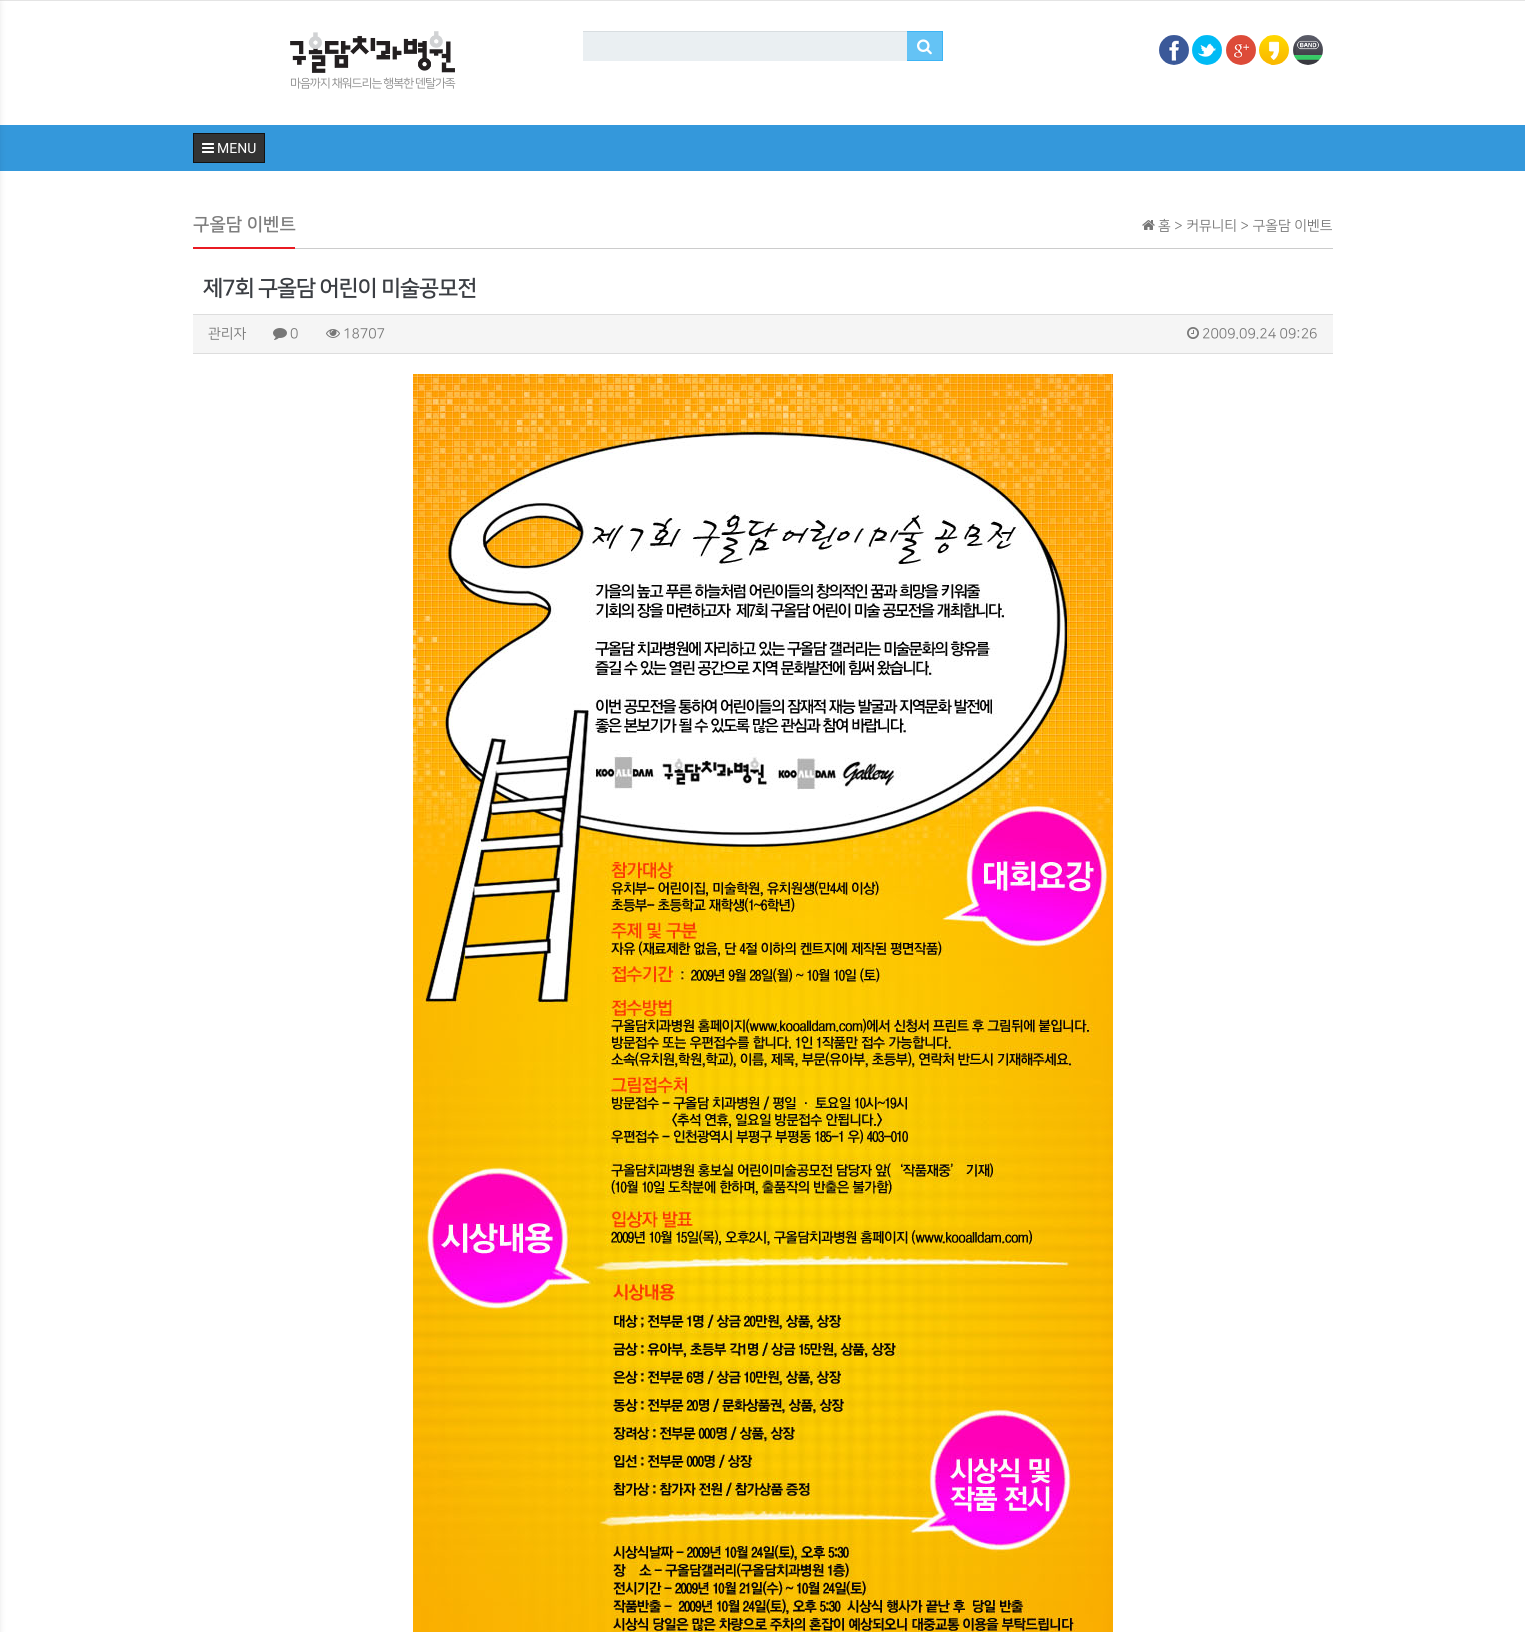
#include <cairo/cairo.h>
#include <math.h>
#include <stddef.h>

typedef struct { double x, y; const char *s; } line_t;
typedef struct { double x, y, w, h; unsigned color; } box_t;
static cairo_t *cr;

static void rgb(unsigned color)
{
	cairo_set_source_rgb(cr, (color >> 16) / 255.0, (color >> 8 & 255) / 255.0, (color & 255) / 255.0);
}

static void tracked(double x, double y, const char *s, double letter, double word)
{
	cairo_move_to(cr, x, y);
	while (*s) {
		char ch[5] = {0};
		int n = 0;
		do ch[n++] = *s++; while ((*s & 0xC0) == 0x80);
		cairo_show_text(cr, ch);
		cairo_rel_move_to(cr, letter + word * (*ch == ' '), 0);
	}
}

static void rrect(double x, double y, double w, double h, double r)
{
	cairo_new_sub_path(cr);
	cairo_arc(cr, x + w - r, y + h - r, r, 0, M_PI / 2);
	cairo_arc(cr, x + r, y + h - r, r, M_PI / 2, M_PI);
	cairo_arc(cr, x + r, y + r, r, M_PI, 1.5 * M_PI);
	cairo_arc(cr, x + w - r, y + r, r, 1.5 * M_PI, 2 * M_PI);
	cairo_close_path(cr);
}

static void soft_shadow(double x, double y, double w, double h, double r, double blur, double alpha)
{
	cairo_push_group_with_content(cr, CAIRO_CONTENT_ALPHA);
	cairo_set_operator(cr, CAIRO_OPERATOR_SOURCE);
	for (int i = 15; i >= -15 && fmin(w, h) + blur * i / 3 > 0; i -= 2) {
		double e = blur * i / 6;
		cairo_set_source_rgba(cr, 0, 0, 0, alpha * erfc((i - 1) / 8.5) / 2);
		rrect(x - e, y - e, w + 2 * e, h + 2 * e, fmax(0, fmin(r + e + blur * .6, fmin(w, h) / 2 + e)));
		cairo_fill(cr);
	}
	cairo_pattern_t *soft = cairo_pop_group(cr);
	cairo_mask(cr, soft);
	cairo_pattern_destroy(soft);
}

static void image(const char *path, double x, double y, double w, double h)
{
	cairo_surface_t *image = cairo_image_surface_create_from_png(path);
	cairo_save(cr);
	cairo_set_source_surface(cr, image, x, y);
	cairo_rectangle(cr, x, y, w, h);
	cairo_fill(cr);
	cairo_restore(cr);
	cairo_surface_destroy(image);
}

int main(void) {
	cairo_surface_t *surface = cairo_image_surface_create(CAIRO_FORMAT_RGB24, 1525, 1632);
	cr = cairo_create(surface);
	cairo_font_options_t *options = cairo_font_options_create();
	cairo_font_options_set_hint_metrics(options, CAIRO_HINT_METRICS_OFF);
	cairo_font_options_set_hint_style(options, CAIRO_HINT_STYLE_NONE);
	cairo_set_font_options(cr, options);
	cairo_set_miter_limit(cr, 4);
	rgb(0xffffff);
	cairo_paint(cr);
	rgb(0xe4e4e4);
	cairo_rectangle(cr, 0, 0, 1525, 1);
	cairo_fill(cr);
	rgb(0x3498db);
	cairo_rectangle(cr, 0, 125, 1525, 46);
	cairo_fill(cr);
	rgb(0x000000);
	soft_shadow(-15, 2, 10, 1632, 0, 5, 0.3);
	rgb(0x64c3f5);
	cairo_rectangle(cr, 906.5, 31.5, 36, 29);
	cairo_fill_preserve(cr);
	rgb(0x3cb4f5);
	cairo_set_line_width(cr, 1);
	cairo_stroke(cr);
	rgb(0xeaeff2);
	cairo_rectangle(cr, 583, 32, 324, 29);
	cairo_fill(cr);
	rgb(0xd8dde0);
	cairo_rectangle(cr, 583, 31, 324, 1);
	cairo_fill(cr);
	image("img/1.png", 917, 39, 15, 16);
	image("img/2.png", 1159, 35, 30, 30);
	image("img/3.png", 1192, 35, 30, 30);
	image("img/4.png", 1226, 35, 30, 30);
	image("img/5.png", 1259, 35, 30, 30);
	image("img/6.png", 1293, 35, 30, 30);
	image("img/7.png", 290, 31, 165, 42);
	rgb(0x333333);
	cairo_rectangle(cr, 193.5, 133.5, 71, 29);
	cairo_fill_preserve(cr);
	rgb(0x111111);
	cairo_stroke(cr);
	image("img/8.png", 202, 143, 12, 10);
	rgb(0xcccccc);
	cairo_rectangle(cr, 295, 248, 1038, 1);
	cairo_fill(cr);
	rgb(0xe91b23);
	cairo_rectangle(cr, 193, 247, 102, 2);
	cairo_fill(cr);
	image("img/9.png", 1142, 220, 13, 10);
	{
		static const box_t items[] = {
			{193, 314, 1140, 1, 0xdddddd},
			{193, 315, 1140, 38, 0xf5f5f5},
			{193, 353, 1140, 1, 0xdddddd},
		};
		for (size_t i = 0; i < sizeof items / sizeof *items; i++) {
			rgb(items[i].color);
			cairo_rectangle(cr, items[i].x, items[i].y, items[i].w, items[i].h);
			cairo_fill(cr);
		}
	}
	image("img/10.png", 273, 328, 14, 12);
	image("img/11.png", 326, 329, 14, 9);
	image("img/12.png", 1187, 327, 12, 12);
	image("img/13.png", 413, 374, 700, 1258);
	cairo_select_font_face(cr, "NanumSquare", CAIRO_FONT_SLANT_NORMAL, CAIRO_FONT_WEIGHT_NORMAL);
	cairo_set_font_size(cr, 12);
	rgb(0x888888);
	tracked(290, 87, "마음까지 채워드리는 행복한 덴탈가족", -1, 0);
	cairo_select_font_face(cr, "Roboto", CAIRO_FONT_SLANT_NORMAL, CAIRO_FONT_WEIGHT_NORMAL);
	cairo_set_font_size(cr, 14);
	rgb(0xffffff);
	cairo_move_to(cr, 217, 153);
	cairo_show_text(cr, "MENU");
	cairo_select_font_face(cr, "NanumSquare", CAIRO_FONT_SLANT_NORMAL, CAIRO_FONT_WEIGHT_BOLD);
	cairo_set_font_size(cr, 18);
	rgb(0x7d7d7d);
	cairo_move_to(cr, 193, 230);
	cairo_show_text(cr, "구올담 이벤트");
	cairo_select_font_face(cr, "NanumSquare", CAIRO_FONT_SLANT_NORMAL, CAIRO_FONT_WEIGHT_NORMAL);
	cairo_set_font_size(cr, 14);
	rgb(0x777777);
	cairo_move_to(cr, 1158, 230);
	cairo_show_text(cr, "홈 > 커뮤니티 > 구올담 이벤트");
	cairo_select_font_face(cr, "NanumSquare", CAIRO_FONT_SLANT_NORMAL, CAIRO_FONT_WEIGHT_BOLD);
	cairo_set_font_size(cr, 22);
	rgb(0x3b3e43);
	tracked(203, 295, "제7회 구올담 어린이 미술공모전", -1, 0);
	cairo_select_font_face(cr, "NanumSquare", CAIRO_FONT_SLANT_NORMAL, CAIRO_FONT_WEIGHT_NORMAL);
	cairo_set_font_size(cr, 14);
	rgb(0x777777);
	{
		static const line_t items[] = {
			{208, 338, "관리자"},
			{290, 338, "0"},
			{343, 338, "18707"},
			{1202, 338, "2009.09.24 09:26"},
		};
		for (size_t i = 0; i < sizeof items / sizeof *items; i++) {
			cairo_move_to(cr, items[i].x, items[i].y);
			cairo_show_text(cr, items[i].s);
		}
	}
	cairo_surface_write_to_png(surface, "page.png");
	cairo_font_options_destroy(options);
	cairo_destroy(cr);
	cairo_surface_destroy(surface);
	return 0;
}
